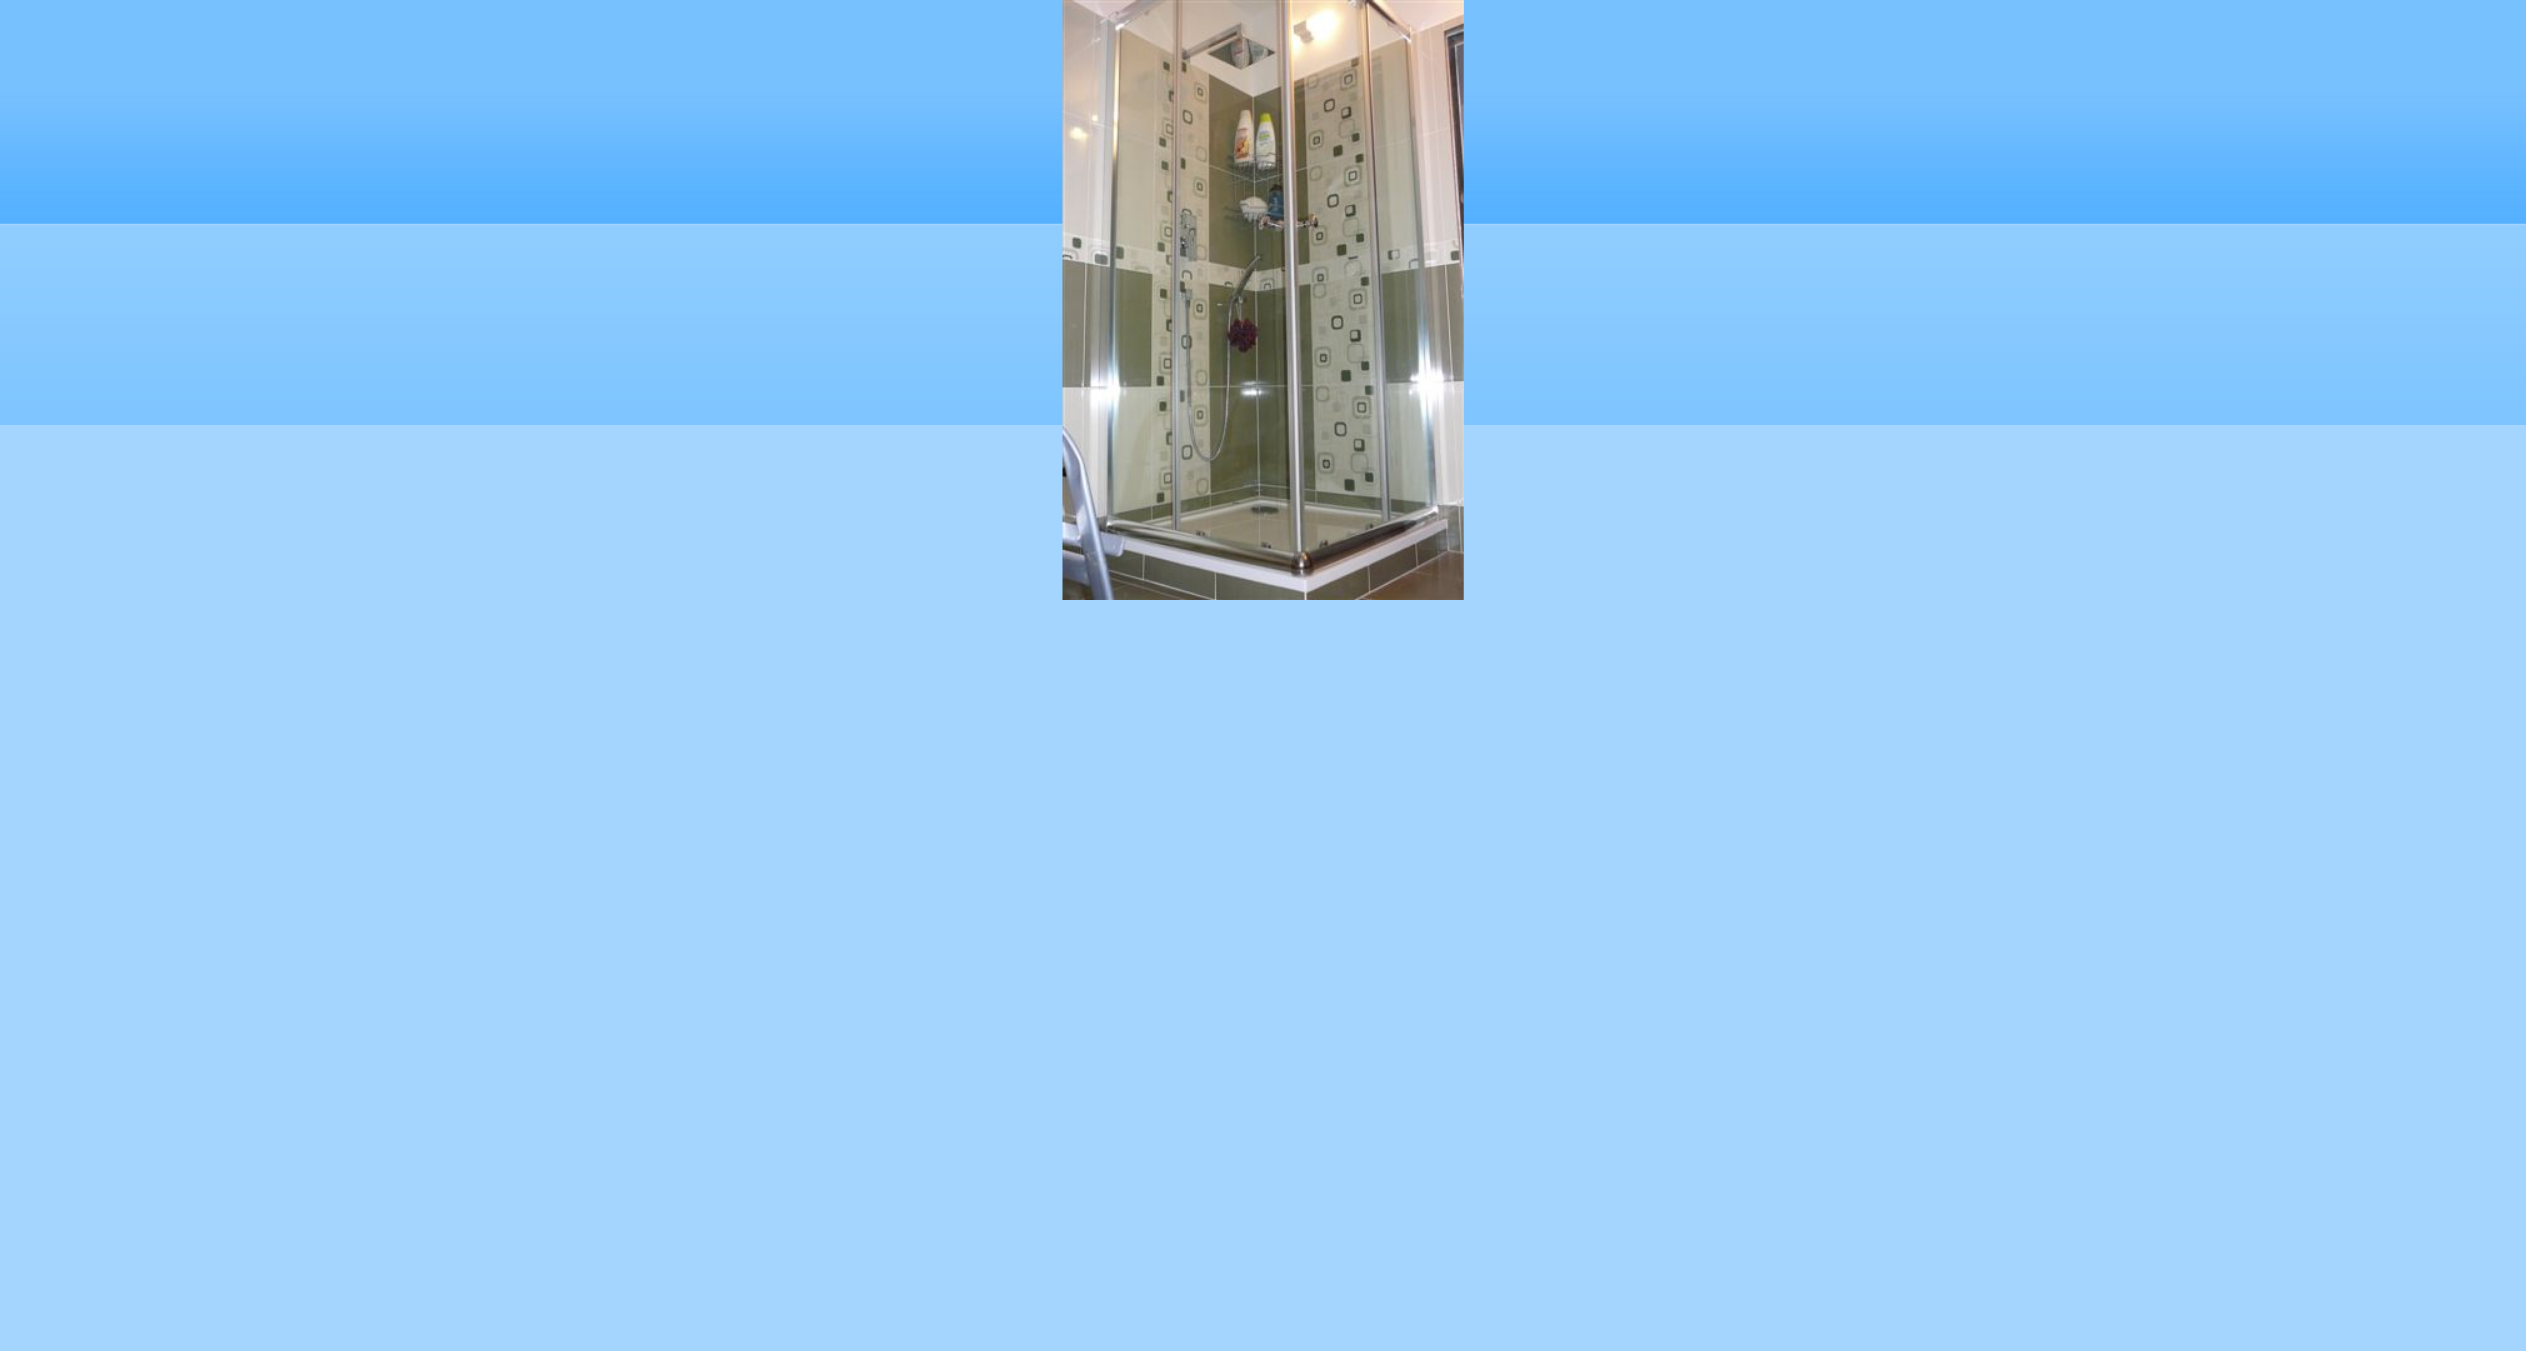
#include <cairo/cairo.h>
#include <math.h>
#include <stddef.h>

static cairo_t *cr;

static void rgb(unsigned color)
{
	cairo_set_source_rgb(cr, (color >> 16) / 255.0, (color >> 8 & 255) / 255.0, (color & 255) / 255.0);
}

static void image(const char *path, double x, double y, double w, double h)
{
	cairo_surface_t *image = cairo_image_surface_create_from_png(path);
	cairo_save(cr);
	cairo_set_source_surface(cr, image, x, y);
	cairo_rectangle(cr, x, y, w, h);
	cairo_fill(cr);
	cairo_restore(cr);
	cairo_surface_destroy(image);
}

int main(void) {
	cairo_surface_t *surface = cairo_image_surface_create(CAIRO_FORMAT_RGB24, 2526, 1351);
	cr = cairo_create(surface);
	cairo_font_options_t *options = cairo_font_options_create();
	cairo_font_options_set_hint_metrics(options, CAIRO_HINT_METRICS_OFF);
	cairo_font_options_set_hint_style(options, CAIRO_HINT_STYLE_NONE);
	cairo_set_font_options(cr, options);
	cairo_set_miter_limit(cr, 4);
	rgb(0xa4d5ff);
	cairo_paint(cr);
	image("img/1.png", 0, 0, 2526, 425);
	image("img/2.png", 1062, 0, 402, 600);
	cairo_surface_write_to_png(surface, "page.png");
	cairo_font_options_destroy(options);
	cairo_destroy(cr);
	cairo_surface_destroy(surface);
	return 0;
}
